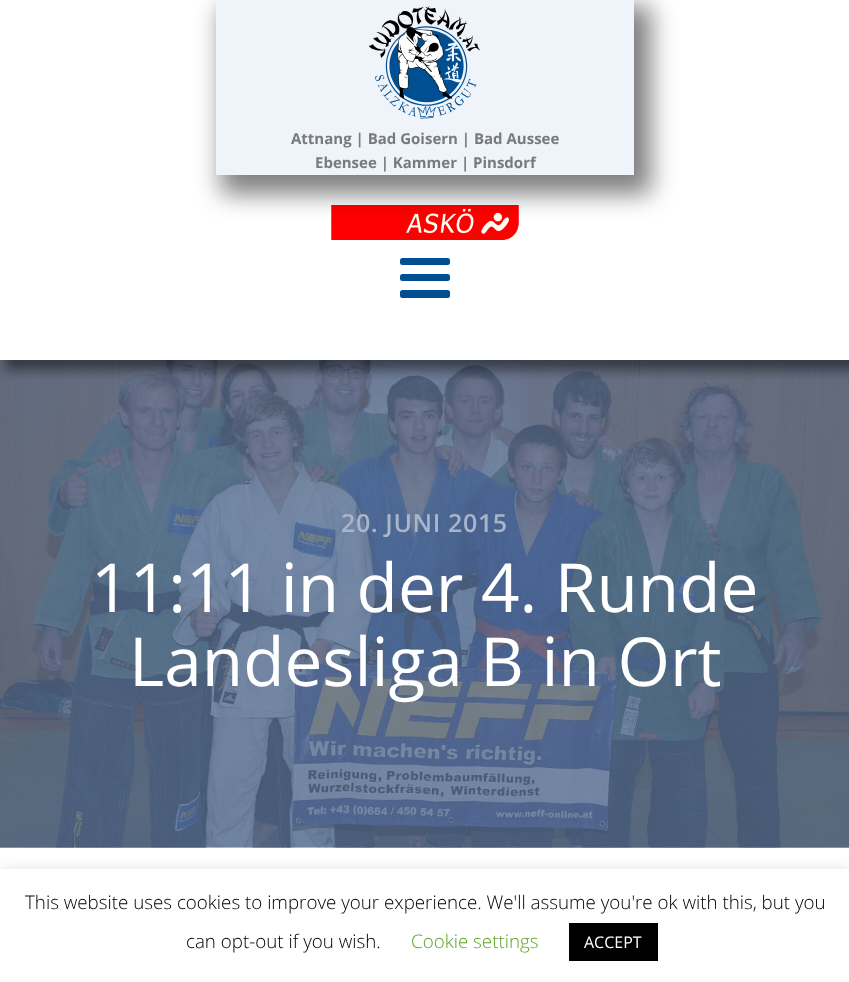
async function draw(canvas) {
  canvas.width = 849;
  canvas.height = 982;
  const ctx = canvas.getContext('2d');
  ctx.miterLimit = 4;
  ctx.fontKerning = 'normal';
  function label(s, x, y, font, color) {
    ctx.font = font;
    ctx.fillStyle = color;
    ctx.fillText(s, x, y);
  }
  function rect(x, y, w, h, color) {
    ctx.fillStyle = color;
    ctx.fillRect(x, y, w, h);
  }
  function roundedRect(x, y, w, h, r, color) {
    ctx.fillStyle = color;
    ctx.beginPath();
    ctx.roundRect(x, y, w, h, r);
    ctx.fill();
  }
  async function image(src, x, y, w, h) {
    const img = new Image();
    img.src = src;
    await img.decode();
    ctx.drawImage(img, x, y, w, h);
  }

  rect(0, 0, 849, 982, '#fff');
  await image('assets/img3.png', 0, 360, 849, 488);
  ctx.save();
  ctx.beginPath();
  ctx.rect(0, 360, 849, 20);
  ctx.clip();
  ctx.fillStyle = '#00000075';
  ctx.filter = 'blur(6px)';
  ctx.beginPath();
  ctx.rect(5, -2, 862, 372);
  ctx.fill();
  ctx.filter = 'none';
  ctx.restore();
  await image('assets/img2.png', 331, 205, 188, 35);
  ctx.fillStyle = '#00000080';
  ctx.filter = 'blur(12.5px)';
  ctx.beginPath();
  ctx.rect(221, 6, 430, 188);
  ctx.fill();
  ctx.filter = 'none';
  rect(216, 0, 418, 175, '#eff4fb');
  await image('assets/img1.png', 368, 6, 112, 113);
  label('Attnang | Bad Goisern | Bad Aussee', 291, 144, 'bold 15px Open Sans', '#787a7e');
  label('Ebensee | Kammer | Pinsdorf', 315, 168, 'bold 15px Open Sans', '#787a7e');
  roundedRect(400, 258, 50, 7, 2.5, '#004f92');
  roundedRect(400, 274, 50, 7, 2.5, '#004f92');
  roundedRect(400, 290, 50, 8, 2.5, '#004f92');
  ctx.letterSpacing = '0.6px';
  label('20. JUNI 2015', 341, 532, '600 25px Open Sans', '#a9b5c9');
  ctx.letterSpacing = '0px';
  label('11:11 in der 4. Runde', 91, 612, '67.5px Open Sans', '#fff');
  label('Landesliga B in Ort', 129, 686, '67.5px Open Sans', '#fff');
  ctx.fillStyle = '#acabab4d';
  ctx.filter = 'blur(6px)';
  ctx.beginPath();
  ctx.rect(0, 868, 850, 113);
  ctx.fill();
  ctx.filter = 'none';
  rect(0, 869, 849, 113, '#fff');
  label('This website uses cookies to improve your experience. We\'ll assume you\'re ok with this, but you', 25, 909, '300 18.75px Open Sans', '#000');
  label('can opt-out if you wish.', 186, 948, '300 18.75px Open Sans', '#000');
  label('Cookie settings', 411, 948, '300 18.75px Open Sans', '#62a329');
  rect(569, 923, 89, 38, '#000');
  label('ACCEPT', 584, 948, '16px Open Sans', '#fff');
}

draw(document.querySelector('canvas'));
